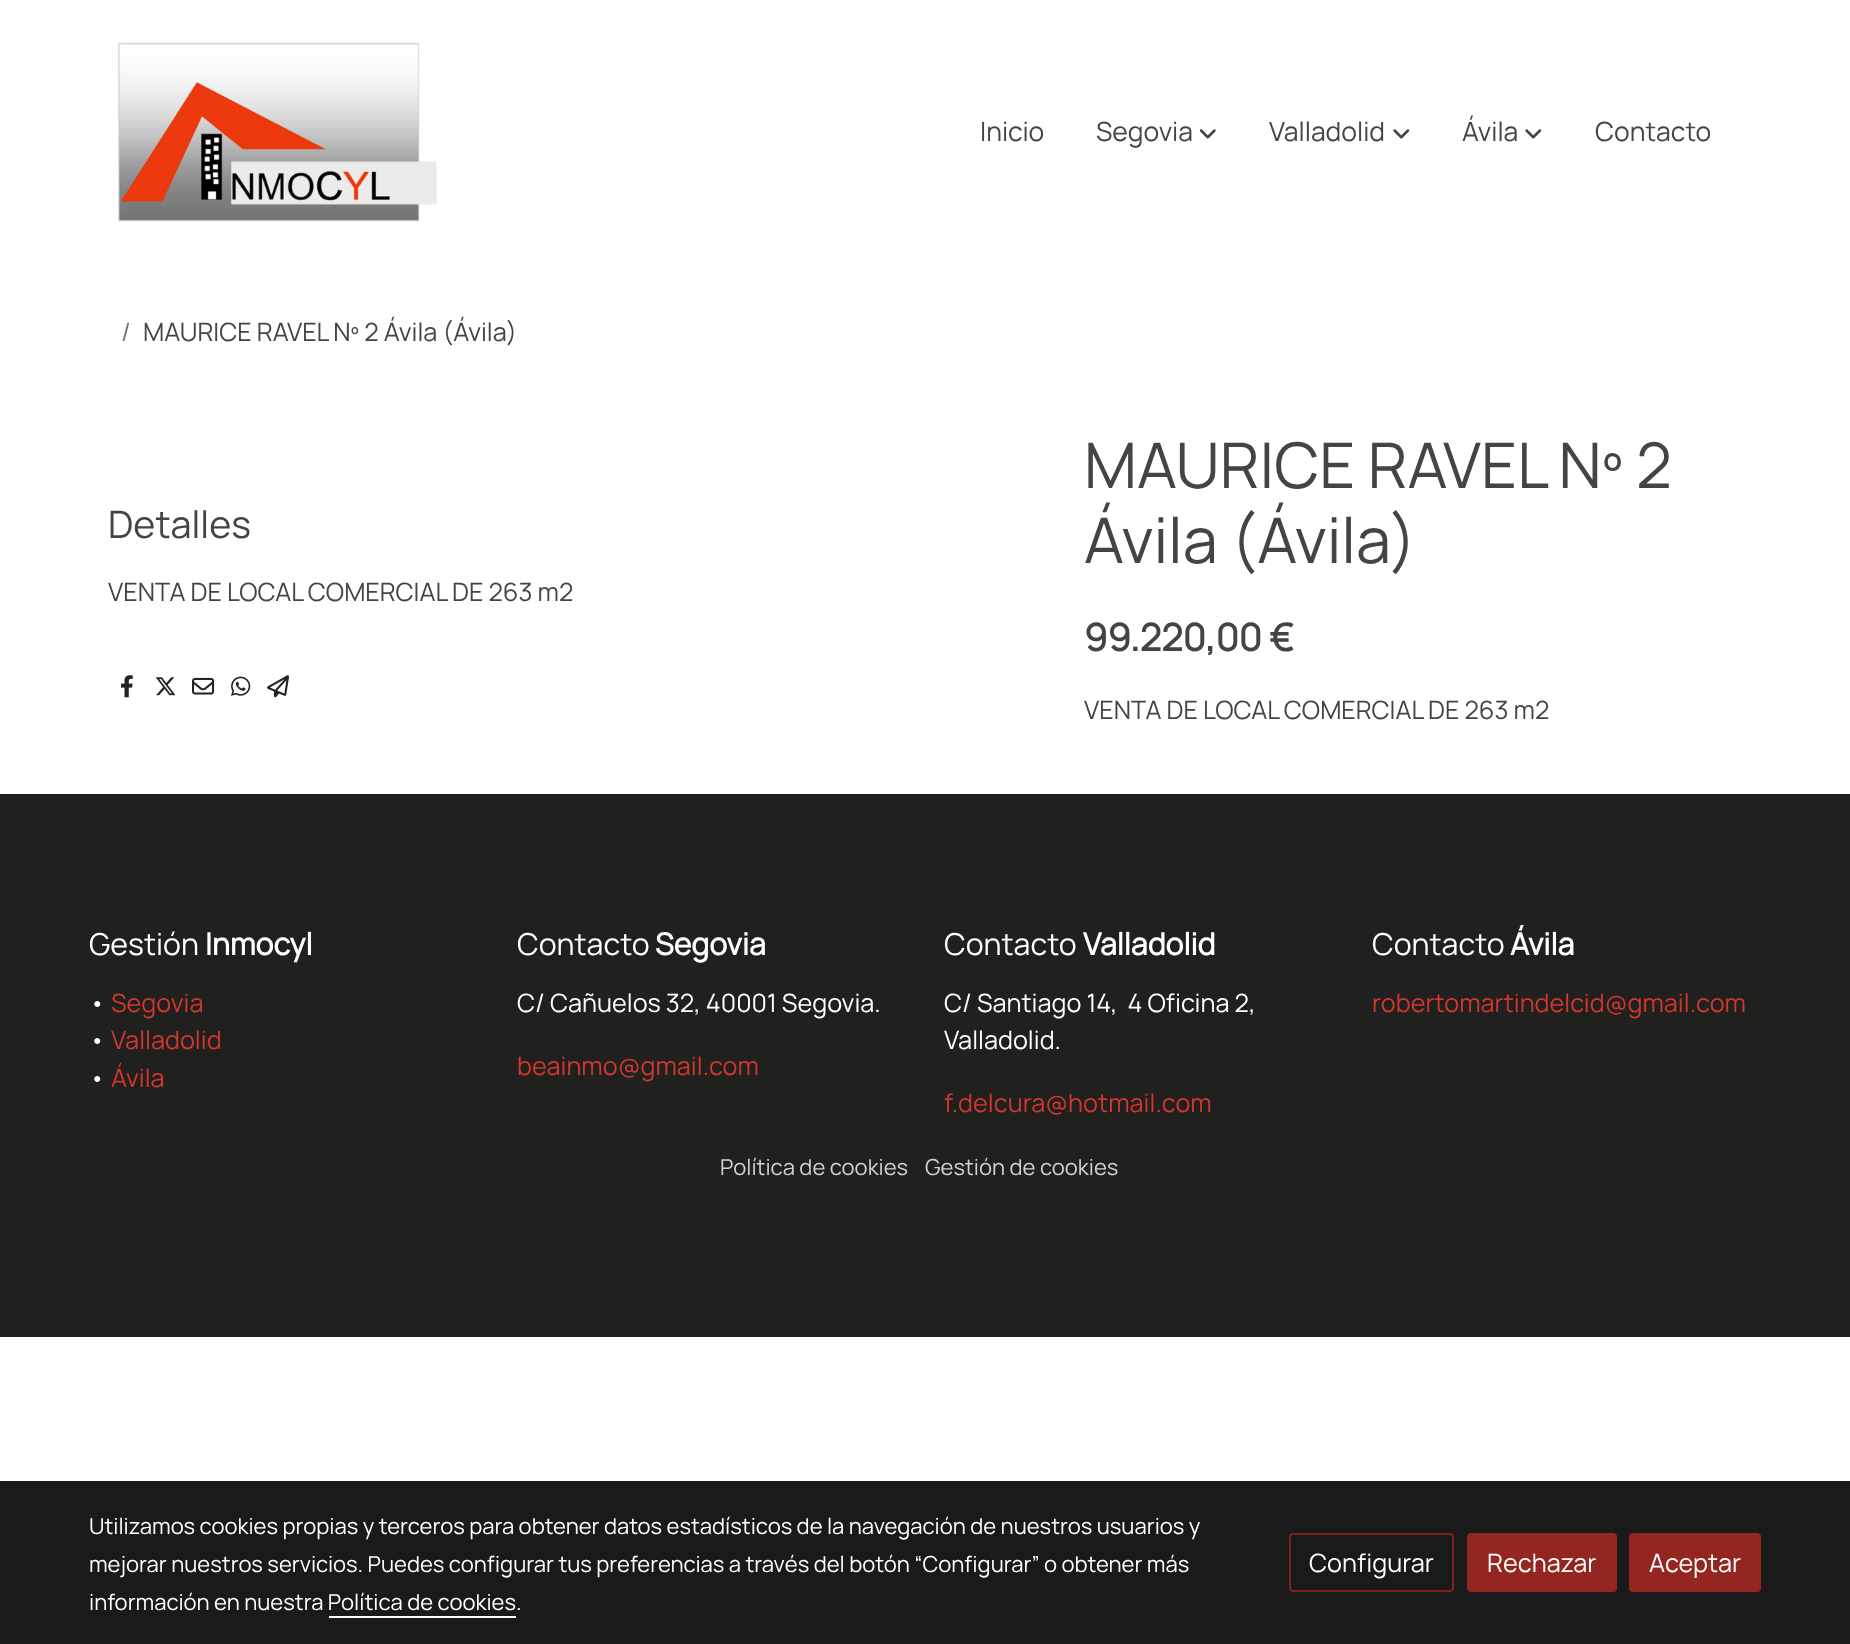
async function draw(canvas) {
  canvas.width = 1850;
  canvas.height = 1644;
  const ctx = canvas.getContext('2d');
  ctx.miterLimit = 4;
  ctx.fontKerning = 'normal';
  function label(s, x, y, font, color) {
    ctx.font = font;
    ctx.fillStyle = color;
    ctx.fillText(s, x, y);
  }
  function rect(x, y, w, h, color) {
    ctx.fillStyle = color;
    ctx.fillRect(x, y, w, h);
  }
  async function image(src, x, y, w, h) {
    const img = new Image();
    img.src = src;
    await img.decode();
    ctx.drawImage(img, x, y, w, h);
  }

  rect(0, 0, 1850, 1644, '#fff');
  await image('assets/img1.png', 118, 42, 319, 180);
  label('Inicio', 980, 141, '200 26.5px Manrope', '#444');
  label('Segovia', 1096, 141, '200 26.5px Manrope', '#444');
  await image('assets/img2.png', 1199, 129, 17, 10);
  label('Valladolid', 1269, 141, '200 26.5px Manrope', '#444');
  await image('assets/img3.png', 1393, 129, 17, 10);
  label('Ávila', 1462, 141, '200 26.5px Manrope', '#444');
  await image('assets/img3.png', 1525, 129, 17, 10);
  label('Contacto', 1595, 141, '200 26.5px Manrope', '#444');
  label('/', 121, 341, '200 25.25px Manrope', '#6c757d');
  label('MAURICE RAVEL Nº 2 Ávila (Ávila)', 143, 341, '200 25.25px Manrope', '#444');
  label('Detalles', 108, 538, '200 37.75px Manrope', '#444');
  label('VENTA DE LOCAL COMERCIAL DE 263 m2', 108, 601, '200 25.25px Manrope', '#444');
  await image('assets/img4.png', 121, 675, 12, 23);
  await image('assets/img5.png', 155, 677, 21, 19);
  await image('assets/img6.png', 192, 677, 23, 18);
  await image('assets/img7.png', 231, 676, 20, 20);
  await image('assets/img8.png', 267, 675, 22, 23);
  label('MAURICE RAVEL Nº 2', 1084, 488, '200 63px Manrope', '#444');
  label('Ávila (Ávila)', 1084, 563, '200 63px Manrope', '#444');
  label('99.220,00 €', 1084, 651, 'bold 37.75px Manrope', '#444');
  label('VENTA DE LOCAL COMERCIAL DE 263 m2', 1084, 719, '200 25.25px Manrope', '#444');
  rect(0, 794, 1850, 543, '#20201e');
  label('Gestión', 89, 955, '200 30.25px Manrope', '#fff');
  label('Inmocyl', 205, 955, 'bold 30.25px Manrope', '#fff');
  label('•', 89, 1012, '200 25.25px Manrope', '#fff');
  label('Segovia', 111, 1012, '200 25.25px Manrope', '#d1372f');
  label('•', 89, 1049, '200 25.25px Manrope', '#fff');
  label('Valladolid', 111, 1049, '200 25.25px Manrope', '#d1372f');
  label('•', 89, 1087, '200 25.25px Manrope', '#fff');
  label('Ávila', 111, 1087, '200 25.25px Manrope', '#d1372f');
  label('Contacto', 517, 955, '200 30.25px Manrope', '#fff');
  label('Segovia', 655, 955, 'bold 30.25px Manrope', '#fff');
  label('C/ Cañuelos 32, 40001 Segovia.', 517, 1012, '200 25.25px Manrope', '#fff');
  label('beainmo@gmail.com', 517, 1075, '200 25.25px Manrope', '#d1372f');
  label('Contacto', 944, 955, '200 30.25px Manrope', '#fff');
  label('Valladolid', 1083, 955, 'bold 30.25px Manrope', '#fff');
  label('C/ Santiago 14,  4 Oficina 2,', 944, 1012, '200 25.25px Manrope', '#fff');
  label('Valladolid.', 944, 1049, '200 25.25px Manrope', '#fff');
  label('f.delcura@hotmail.com', 944, 1112, '200 25.25px Manrope', '#d1372f');
  label('Contacto', 1372, 955, '200 30.25px Manrope', '#fff');
  label('Ávila', 1510, 955, 'bold 30.25px Manrope', '#fff');
  label('robertomartindelcid@gmail.com', 1372, 1012, '200 25.25px Manrope', '#d1372f');
  label('Política de cookies', 720, 1175, '200 22.05px Manrope', '#d2d2d2');
  label('Gestión de cookies', 925, 1175, '200 22.05px Manrope', '#d2d2d2');
  rect(0, 1481, 1850, 163, '#1a1a1a');
  label('Utilizamos cookies propias y terceros para obtener datos estadísticos de la navegación de nuestros usuarios y', 89, 1534, '200 22.05px Manrope', '#fff');
  label('mejorar nuestros servicios. Puedes configurar tus preferencias a través del botón “Configurar” o obtener más', 89, 1572, '200 22.05px Manrope', '#fff');
  label('información en nuestra Política de cookies.', 89, 1610, '200 22.05px Manrope', '#fff');
  rect(329, 1616, 187, 2, '#fff');
  ctx.beginPath();
  ctx.roundRect(1290, 1534, 163, 57, 3);
  ctx.strokeStyle = '#7e211c';
  ctx.lineWidth = 2;
  ctx.stroke();
  label('Configurar', 1309, 1572, '200 25.25px Manrope', '#fff');
  ctx.fillStyle = '#932621';
  ctx.beginPath();
  ctx.roundRect(1468, 1534, 148, 57, 3);
  ctx.fill();
  ctx.strokeStyle = '#932621';
  ctx.stroke();
  label('Rechazar', 1487, 1572, '200 25.25px Manrope', '#fff');
  ctx.fillStyle = '#932621';
  ctx.beginPath();
  ctx.roundRect(1630, 1534, 130, 57, 3);
  ctx.fill();
  ctx.stroke();
  label('Aceptar', 1649, 1572, '200 25.25px Manrope', '#fff');
}

draw(document.querySelector('canvas'));
